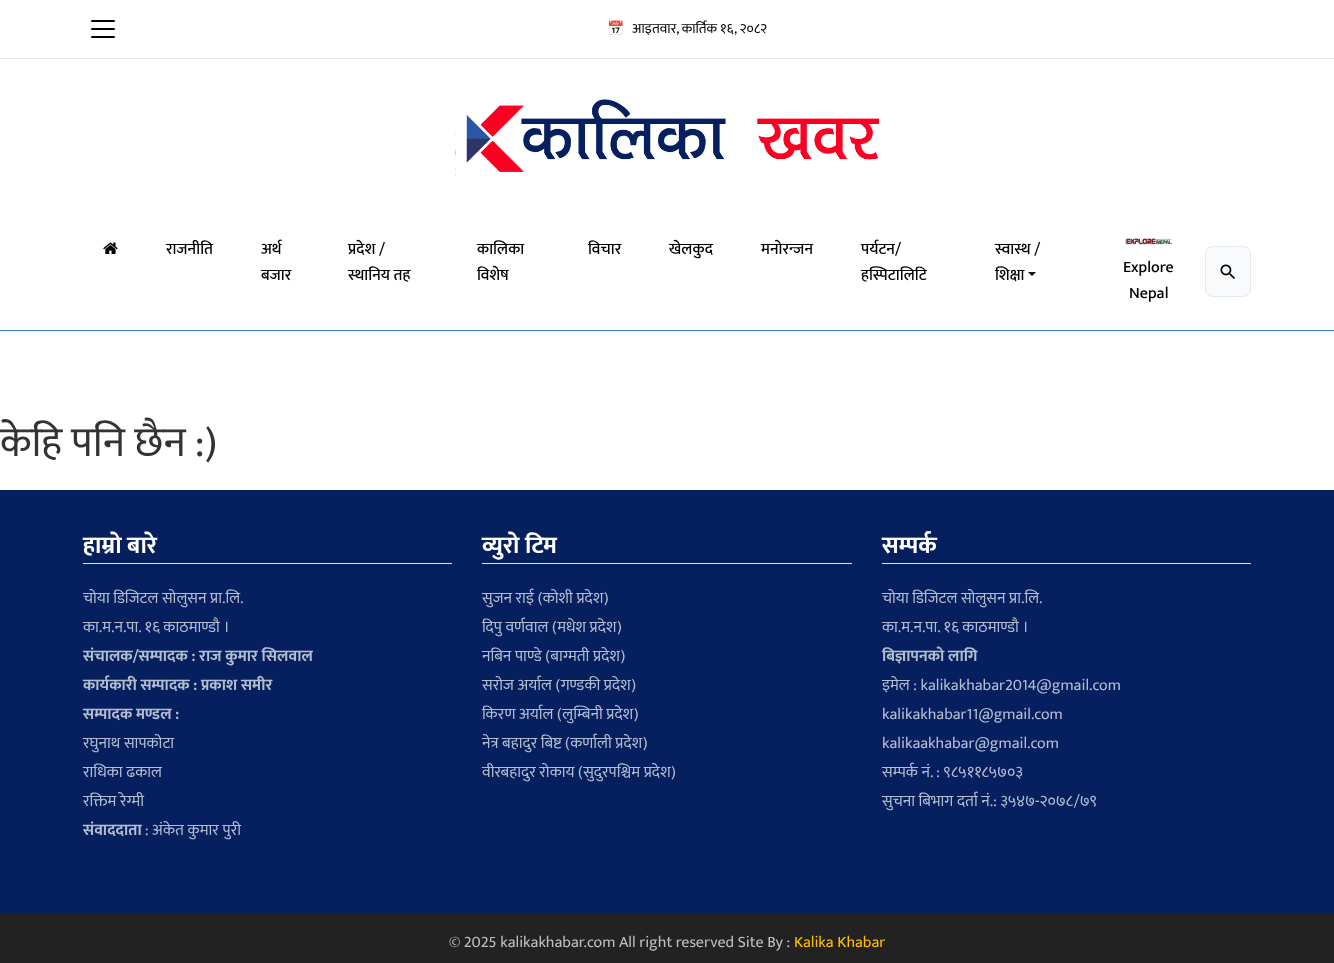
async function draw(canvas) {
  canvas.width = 1334;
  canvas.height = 963;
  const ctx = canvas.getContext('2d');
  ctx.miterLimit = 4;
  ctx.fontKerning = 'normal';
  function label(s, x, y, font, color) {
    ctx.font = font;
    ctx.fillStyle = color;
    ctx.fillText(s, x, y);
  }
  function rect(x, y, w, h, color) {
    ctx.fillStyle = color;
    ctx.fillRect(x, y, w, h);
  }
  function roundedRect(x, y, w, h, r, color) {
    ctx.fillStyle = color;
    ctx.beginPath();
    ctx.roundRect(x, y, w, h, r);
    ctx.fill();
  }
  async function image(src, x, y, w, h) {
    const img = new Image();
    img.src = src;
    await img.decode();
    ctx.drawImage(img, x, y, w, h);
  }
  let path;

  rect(0, 0, 1334, 963, '#fff');
  rect(0, 58, 1334, 1, '#e2e8f0');
  roundedRect(91, 20, 24, 2, 1, '#000');
  roundedRect(91, 28, 24, 2, 1, '#000');
  roundedRect(91, 36, 24, 2, 1, '#000');
  label('📅', 607, 33, '14px Noto Color Emoji', '#000');
  label('आइतवार, कार्तिक १६, २०८२', 632, 33, '14px Ek Mukta', '#000');
  await image('assets/img1.png', 455, 99, 424, 76);
  rect(0, 330, 1334, 1, '#3c7ed6');
  await image('assets/img2.png', 103, 242, 15, 12);
  label('राजनीति', 166, 254, '500 16px Ek Mukta', '#000');
  label('अर्थ', 261, 254, '500 16px Ek Mukta', '#000');
  label('बजार', 261, 280, '500 16px Ek Mukta', '#000');
  label('प्रदेश /', 348, 254, '500 16px Ek Mukta', '#000');
  label('स्थानिय तह', 348, 280, '500 16px Ek Mukta', '#000');
  label('कालिका', 477, 254, '500 16px Ek Mukta', '#000');
  label('विशेष', 477, 280, '500 16px Ek Mukta', '#000');
  label('विचार', 588, 254, '500 16px Ek Mukta', '#000');
  label('खेलकुद', 669, 254, '500 16px Ek Mukta', '#000');
  label('मनोरन्जन', 761, 254, '500 16px Ek Mukta', '#000');
  label('पर्यटन/', 861, 254, '500 16px Ek Mukta', '#000');
  label('हस्पिटालिटि', 861, 280, '500 16px Ek Mukta', '#000');
  label('स्वास्थ /', 995, 254, '500 16px Ek Mukta', '#000');
  label('शिक्षा', 995, 280, '500 16px Ek Mukta', '#000');
  path = new Path2D('M1028 272H1036L1032 276Z');
  ctx.fill(path);
  await image('assets/img3.png', 1125, 238, 47, 7);
  label('Explore', 1123, 272, '500 16px Ek Mukta', '#000');
  label('Nepal', 1129, 298, '500 16px Ek Mukta', '#000');
  ctx.fillStyle = '#f8fafc';
  ctx.beginPath();
  ctx.roundRect(1205.5, 246.5, 45, 50, 7.5);
  ctx.fill();
  ctx.strokeStyle = '#e2e8f0';
  ctx.stroke();
  await image('assets/img4.png', 1220, 264, 15, 15);
  label('केहि पनि छैन :)', 0, 456, '42px Ek Mukta', '#333');
  rect(0, 490, 1334, 424, '#051f5f');
  rect(83, 563, 369, 1, '#dee2e6');
  label('हाम्रो बारे', 83, 553, 'bold 24px Ek Mukta', '#fff');
  label('चोया डिजिटल सोलुसन प्रा.लि.', 83, 603, '16px Ek Mukta', '#b4bccf');
  label('का.म.न.पा. १६ काठमाण्डौ ।', 83, 632, '16px Ek Mukta', '#b4bccf');
  label('संचालक/सम्पादक : राज कुमार सिलवाल', 83, 661, 'bold 16px Ek Mukta', '#b4bccf');
  label('कार्यकारी सम्पादक : प्रकाश समीर', 83, 690, 'bold 16px Ek Mukta', '#b4bccf');
  label('सम्पादक मण्डल :', 83, 719, 'bold 16px Ek Mukta', '#b4bccf');
  label('रघुनाथ सापकोटा', 83, 748, '16px Ek Mukta', '#b4bccf');
  label('राधिका ढकाल', 83, 777, '16px Ek Mukta', '#b4bccf');
  label('रक्तिम रेग्मी', 83, 806, '16px Ek Mukta', '#b4bccf');
  label('संवाददाता', 83, 835, 'bold 16px Ek Mukta', '#b4bccf');
  label(': अंकेत कुमार पुरी', 145, 835, '16px Ek Mukta', '#b4bccf');
  rect(482, 563, 370, 1, '#dee2e6');
  label('व्युरो टिम', 482, 553, 'bold 24px Ek Mukta', '#fff');
  label('सुजन राई (कोशी प्रदेश)', 482, 603, '16px Ek Mukta', '#b4bccf');
  label('दिपु वर्णवाल (मधेश प्रदेश)', 482, 632, '16px Ek Mukta', '#b4bccf');
  label('नबिन पाण्डे (बाग्मती प्रदेश)', 482, 661, '16px Ek Mukta', '#b4bccf');
  label('सरोज अर्याल (गण्डकी प्रदेश)', 482, 690, '16px Ek Mukta', '#b4bccf');
  label('किरण अर्याल (लुम्बिनी प्रदेश)', 482, 719, '16px Ek Mukta', '#b4bccf');
  label('नेत्र बहादुर बिष्ट (कर्णाली प्रदेश)', 482, 748, '16px Ek Mukta', '#b4bccf');
  label('वीरबहादुर रोकाय (सुदुरपश्चिम प्रदेश)', 482, 777, '16px Ek Mukta', '#b4bccf');
  rect(882, 563, 369, 1, '#dee2e6');
  label('सम्पर्क', 882, 553, 'bold 24px Ek Mukta', '#fff');
  label('चोया डिजिटल सोलुसन प्रा.लि.', 882, 603, '16px Ek Mukta', '#b4bccf');
  label('का.म.न.पा. १६ काठमाण्डौ ।', 882, 632, '16px Ek Mukta', '#b4bccf');
  label('बिज्ञापनको लागि', 882, 661, 'bold 16px Ek Mukta', '#b4bccf');
  label('इमेल : kalikakhabar2014@gmail.com', 882, 690, '16px Ek Mukta', '#b4bccf');
  label('kalikakhabar11@gmail.com', 882, 719, '16px Ek Mukta', '#b4bccf');
  label('kalikaakhabar@gmail.com', 882, 748, '16px Ek Mukta', '#b4bccf');
  label('सम्पर्क नं. : ९८५११८५७०३', 882, 777, '16px Ek Mukta', '#b4bccf');
  label('सुचना बिभाग दर्ता नं.: ३५४७-२०७८/७९', 882, 806, '16px Ek Mukta', '#b4bccf');
  rect(0, 914, 1334, 49, '#222');
  label('© 2025 kalikakhabar.com All right reserved Site By :', 449, 947, '16px Ek Mukta', '#bdbdbd');
  label('Kalika Khabar', 794, 947, '16px Ek Mukta', '#ffbc00');
}

draw(document.querySelector('canvas'));
